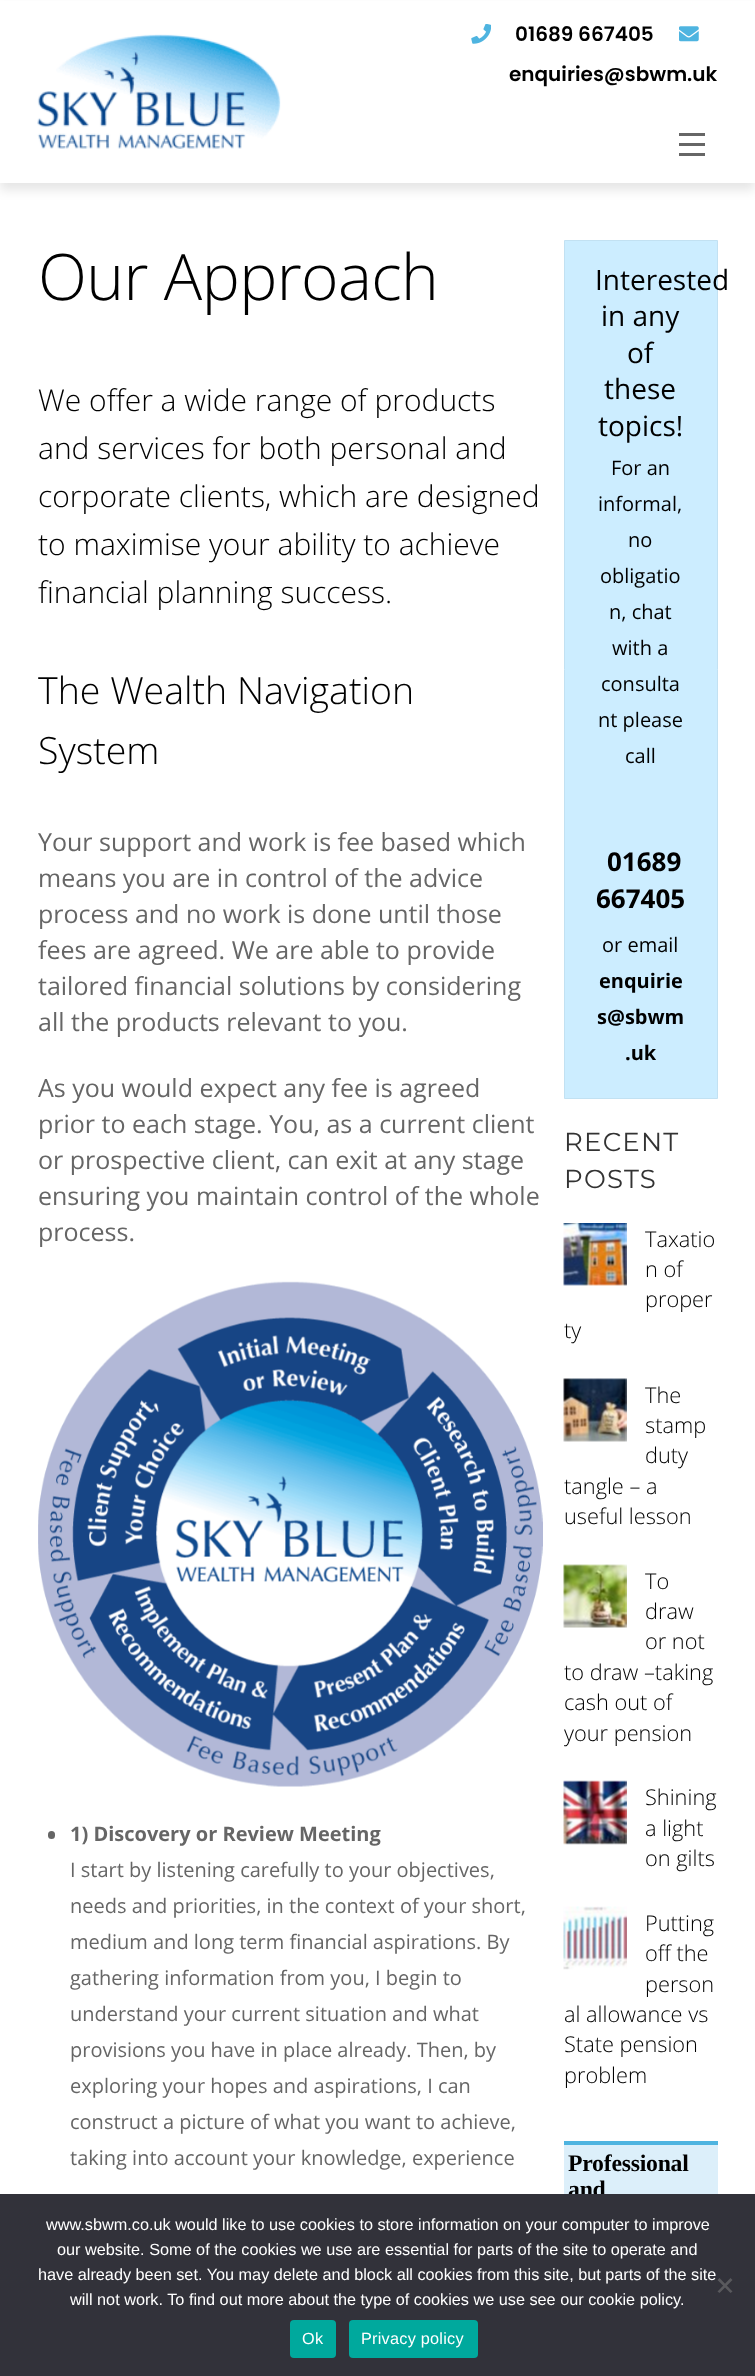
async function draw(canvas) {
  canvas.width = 755;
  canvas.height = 2376;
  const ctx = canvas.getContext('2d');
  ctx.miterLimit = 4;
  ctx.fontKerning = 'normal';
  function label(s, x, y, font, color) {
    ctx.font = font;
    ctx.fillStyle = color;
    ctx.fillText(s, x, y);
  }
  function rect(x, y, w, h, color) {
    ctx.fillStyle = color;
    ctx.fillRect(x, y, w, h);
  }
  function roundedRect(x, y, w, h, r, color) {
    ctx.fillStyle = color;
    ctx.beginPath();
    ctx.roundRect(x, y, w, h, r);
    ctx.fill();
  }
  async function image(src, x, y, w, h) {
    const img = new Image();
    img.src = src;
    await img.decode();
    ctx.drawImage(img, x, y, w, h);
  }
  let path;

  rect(0, 0, 755, 2376, '#fff');
  ctx.fillStyle = '#0000001a';
  ctx.filter = 'blur(5.5px)';
  ctx.beginPath();
  ctx.rect(0, 8, 755, 182);
  ctx.fill();
  ctx.filter = 'none';
  rect(0, 1, 755, 182, '#fff');
  await image('assets/img1.png', 37, 34, 244, 115);
  await image('assets/img2.png', 471, 24, 20, 20);
  label('01689 667405', 515, 41, '600 20px Poppins', '#000');
  await image('assets/img3.png', 679, 26, 20, 16);
  label('enquiries@sbwm.uk', 509, 81, '600 20px Poppins', '#000');
  rect(679, 153, 26, 3, '#666');
  rect(679, 133, 26, 3, '#666');
  rect(679, 143, 26, 3, '#666');
  ctx.letterSpacing = '-0.6px';
  label('Our Approach', 38, 300, '300 64px Open Sans', '#000');
  ctx.letterSpacing = '0px';
  label('We offer a wide range of products', 38, 411, '300 30px Open Sans', '#000');
  label('and services for both personal and', 38, 459, '300 30px Open Sans', '#000');
  label('corporate clients, which are designed', 38, 507, '300 30px Open Sans', '#000');
  label('to maximise your ability to achieve', 38, 555, '300 30px Open Sans', '#000');
  label('financial planning success.', 38, 603, '300 30px Open Sans', '#000');
  label('The Wealth Navigation', 38, 704, '300 37.5px Open Sans', '#000');
  label('System', 38, 764, '300 37.5px Open Sans', '#000');
  label('Your support and work is fee based which', 38, 851, '25px Open Sans', '#666');
  label('means you are in control of the advice', 38, 887, '25px Open Sans', '#666');
  label('process and no work is done until those', 38, 923, '25px Open Sans', '#666');
  label('fees are agreed. We are able to provide', 38, 959, '25px Open Sans', '#666');
  label('tailored financial solutions by considering', 38, 995, '25px Open Sans', '#666');
  label('all the products relevant to you.', 38, 1031, '25px Open Sans', '#666');
  label('As you would expect any fee is agreed', 38, 1097, '25px Open Sans', '#666');
  label('prior to each stage. You, as a current client', 38, 1133, '25px Open Sans', '#666');
  label('or prospective client, can exit at any stage', 38, 1169, '25px Open Sans', '#666');
  label('ensuring you maintain control of the whole', 38, 1205, '25px Open Sans', '#666');
  label('process.', 38, 1241, '25px Open Sans', '#666');
  await image('assets/img4.png', 38, 1281, 505, 506);
  roundedRect(48, 1831, 7, 8, 3.5, '#666');
  label('1) Discovery or Review Meeting', 70, 1841, 'bold 20px Open Sans', '#666');
  label('I start by listening carefully to your objectives,', 70, 1877, '20px Open Sans', '#666');
  label('needs and priorities, in the context of your short,', 70, 1913, '20px Open Sans', '#666');
  label('medium and long term financial aspirations. By', 70, 1949, '20px Open Sans', '#666');
  label('gathering information from you, I begin to', 70, 1985, '20px Open Sans', '#666');
  label('understand your current situation and what', 70, 2021, '20px Open Sans', '#666');
  label('provisions you have in place already. Then, by', 70, 2057, '20px Open Sans', '#666');
  label('exploring your hopes and aspirations, I can', 70, 2093, '20px Open Sans', '#666');
  label('construct a picture of what you want to achieve,', 70, 2129, '20px Open Sans', '#666');
  label('taking into account your knowledge, experience', 70, 2165, '20px Open Sans', '#666');
  ctx.fillStyle = '#ccedff';
  ctx.beginPath();
  ctx.rect(564.5, 240.5, 153, 858);
  ctx.fill();
  ctx.strokeStyle = '#c2e1f2';
  ctx.stroke();
  label('Interested', 595, 290, '28px Open Sans', '#000');
  label('in any', 601, 326, '28px Open Sans', '#000');
  label('of', 627, 363, '28px Open Sans', '#000');
  label('these', 604, 399, '28px Open Sans', '#000');
  label('topics!', 598, 436, '28px Open Sans', '#000');
  label('For an', 611, 475, '20px Open Sans', '#000');
  label('informal,', 598, 511, '20px Open Sans', '#000');
  label('no', 628, 547, '20px Open Sans', '#000');
  label('obligatio', 600, 583, '20px Open Sans', '#000');
  label('n, chat', 609, 619, '20px Open Sans', '#000');
  label('with a', 612, 655, '20px Open Sans', '#000');
  label('consulta', 601, 691, '20px Open Sans', '#000');
  label('nt please', 598, 727, '20px Open Sans', '#000');
  label('call', 625, 763, '20px Open Sans', '#000');
  label('01689', 607, 871, 'bold 26px Open Sans', '#000');
  label('667405', 596, 908, 'bold 26px Open Sans', '#000');
  label('or email', 602, 952, '20px Open Sans', '#000');
  label('enquirie', 599, 988, 'bold 20px Open Sans', '#000');
  label('s@sbwm', 597, 1024, 'bold 20px Open Sans', '#000');
  label('.uk', 625, 1060, 'bold 20px Open Sans', '#000');
  ctx.letterSpacing = '1.25px';
  label('RECENT', 564, 1151, '26px Montserrat', '#333');
  label('POSTS', 564, 1188, '26px Montserrat', '#333');
  await image('assets/img5.png', 563, 1223, 64, 63);
  ctx.letterSpacing = '0px';
  label('Taxatio', 645, 1247, '300 21.75px Open Sans', '#000');
  label('n of', 645, 1277, '300 21.75px Open Sans', '#000');
  label('proper', 645, 1307, '300 21.75px Open Sans', '#000');
  label('ty', 564, 1338, '300 21.75px Open Sans', '#000');
  await image('assets/img6.png', 563, 1378, 64, 64);
  label('The', 645, 1403, '300 21.75px Open Sans', '#000');
  label('stamp', 645, 1433, '300 21.75px Open Sans', '#000');
  label('duty', 645, 1463, '300 21.75px Open Sans', '#000');
  label('tangle – a', 564, 1494, '300 21.75px Open Sans', '#000');
  label('useful lesson', 564, 1524, '300 21.75px Open Sans', '#000');
  await image('assets/img7.png', 563, 1564, 64, 64);
  label('To', 645, 1589, '300 21.75px Open Sans', '#000');
  label('draw', 645, 1619, '300 21.75px Open Sans', '#000');
  label('or not', 645, 1649, '300 21.75px Open Sans', '#000');
  label('to draw –taking', 564, 1680, '300 21.75px Open Sans', '#000');
  label('cash out of', 564, 1710, '300 21.75px Open Sans', '#000');
  label('your pension', 564, 1741, '300 21.75px Open Sans', '#000');
  await image('assets/img8.png', 563, 1780, 64, 65);
  label('Shining', 645, 1805, '300 21.75px Open Sans', '#000');
  label('a light', 645, 1836, '300 21.75px Open Sans', '#000');
  label('on gilts', 645, 1866, '300 21.75px Open Sans', '#000');
  await image('assets/img9.png', 563, 1906, 64, 64);
  label('Putting', 645, 1931, '300 21.75px Open Sans', '#000');
  label('off the', 645, 1961, '300 21.75px Open Sans', '#000');
  label('person', 645, 1992, '300 21.75px Open Sans', '#000');
  label('al allowance vs', 564, 2022, '300 21.75px Open Sans', '#000');
  label('State pension', 564, 2052, '300 21.75px Open Sans', '#000');
  label('problem', 564, 2083, '300 21.75px Open Sans', '#000');
  rect(564, 2145, 154, 49, '#dceffa');
  rect(564, 2141, 154, 4, '#4eb4e0');
  ctx.letterSpacing = '-0.25px';
  label('Professional', 568, 2171, 'bold 23.75px Liberation Serif', '#000');
  label('and', 568, 2197, 'bold 23.75px Liberation Serif', '#000');
  rect(0, 2194, 755, 182, '#32323a');
  ctx.letterSpacing = '0px';
  label('www.sbwm.co.uk would like to use cookies to store information on your computer to improve', 46, 2230, '16.25px Liberation Sans', '#fff');
  label('our website. Some of the cookies we use are essential for parts of the site to operate and', 57, 2255, '16.25px Liberation Sans', '#fff');
  label('have already been set. You may delete and block all cookies from this site, but parts of the site', 38, 2280, '16.25px Liberation Sans', '#fff');
  label('will not work. To find out more about the type of cookies we use see our cookie policy.', 70, 2305, '16.25px Liberation Sans', '#fff');
  ctx.fillStyle = '#59595d';
  path = new Path2D('M730.5 2278L732.5 2280L719.5 2293L717.5 2291.5Z');
  ctx.fill(path);
  path = new Path2D('M717.5 2280L719.5 2278L732.5 2291.5L730.5 2293Z');
  ctx.fill(path);
  roundedRect(290, 2320, 46, 38, 4, '#00a99d');
  ctx.letterSpacing = '0.25px';
  label('Ok', 302, 2344, '16.25px Liberation Sans', '#fff');
  roundedRect(349, 2320, 129, 38, 4, '#00a99d');
  label('Privacy policy', 361, 2344, '16.25px Liberation Sans', '#fff');
}

draw(document.querySelector('canvas'));
